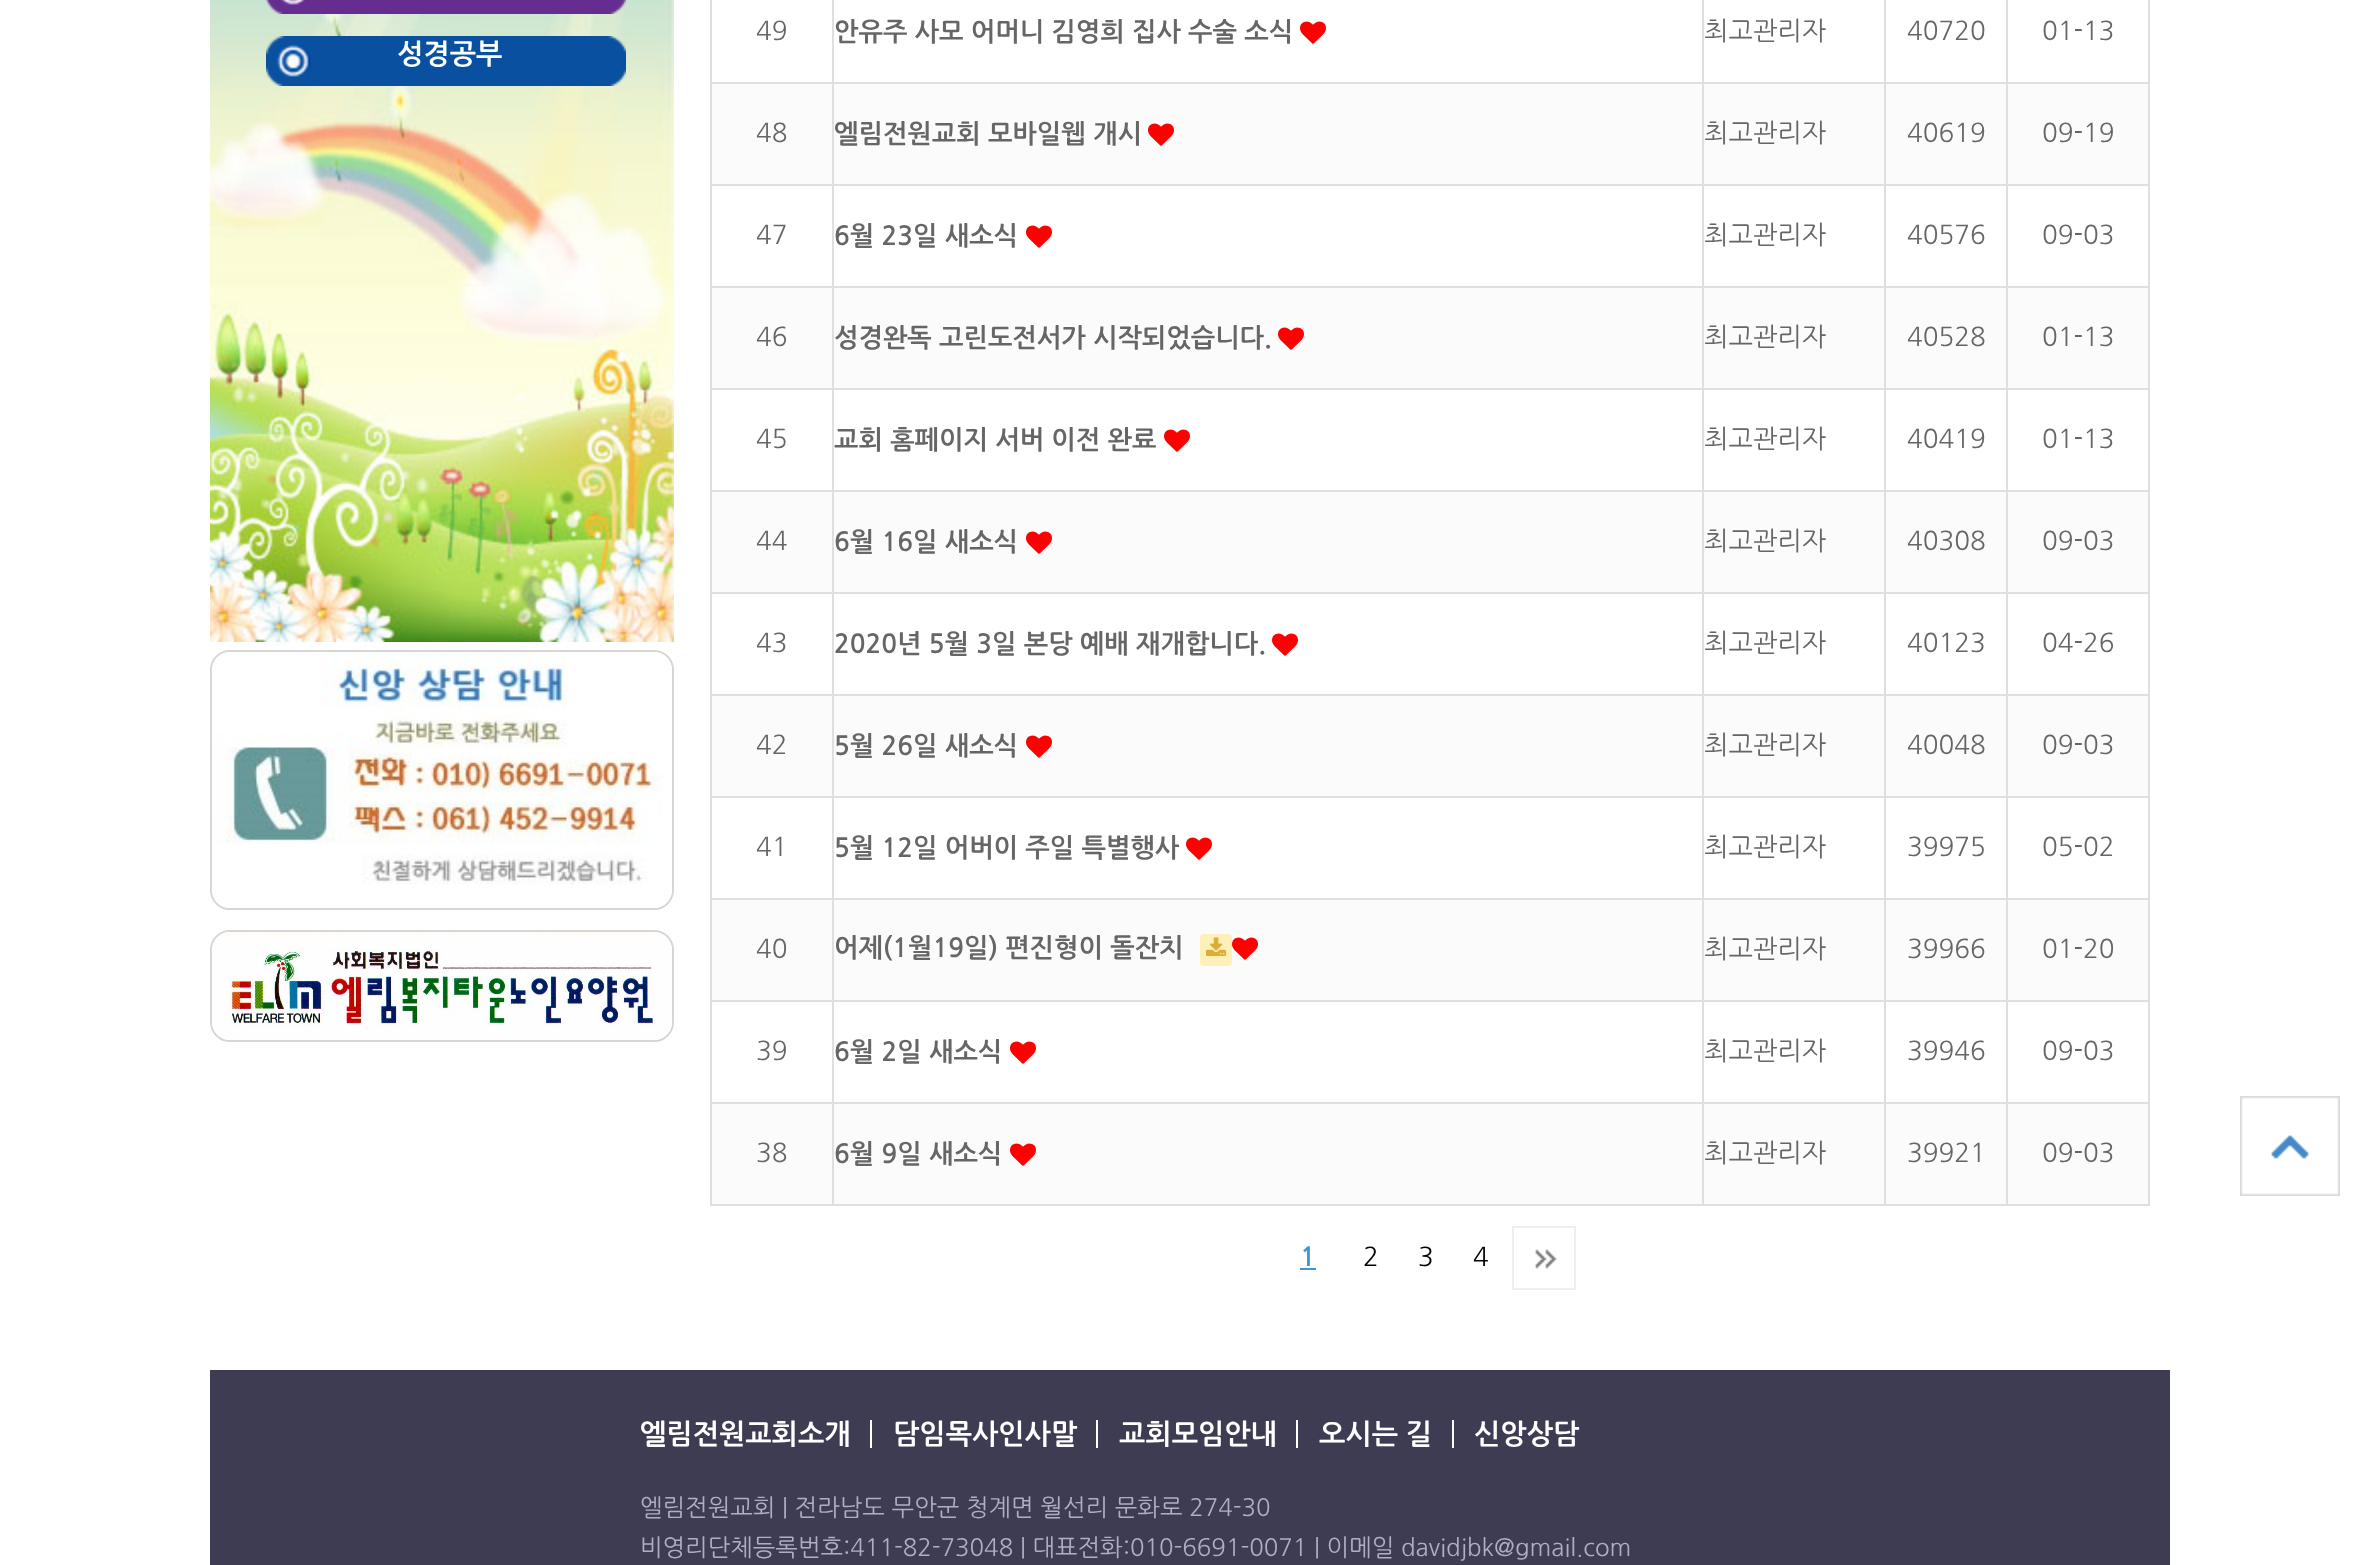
async function draw(canvas) {
  canvas.width = 2379;
  canvas.height = 1565;
  const ctx = canvas.getContext('2d');
  ctx.miterLimit = 4;
  ctx.fontKerning = 'normal';
  function label(s, x, y, font, color) {
    ctx.font = font;
    ctx.fillStyle = color;
    ctx.fillText(s, x, y);
  }
  function rect(x, y, w, h, color) {
    ctx.fillStyle = color;
    ctx.fillRect(x, y, w, h);
  }
  function roundedRect(x, y, w, h, r, color) {
    ctx.fillStyle = color;
    ctx.beginPath();
    ctx.roundRect(x, y, w, h, r);
    ctx.fill();
  }
  async function image(src, x, y, w, h) {
    const img = new Image();
    img.src = src;
    await img.decode();
    ctx.drawImage(img, x, y, w, h);
  }

  rect(0, 0, 2379, 1565, '#fff');
  await image('assets/img1.png', 210, 0, 464, 642);
  await image('assets/img2.png', 266, 0, 360, 14);
  await image('assets/img3.png', 266, 36, 360, 50);
  label('성경공부', 397, 64, 'bold 28px NanumGothic', '#fff');
  ctx.beginPath();
  ctx.roundRect(211, 651, 462, 258, 19);
  ctx.strokeStyle = '#d6d6d6';
  ctx.lineWidth = 2;
  ctx.stroke();
  await image('assets/img4.png', 212, 652, 460, 256);
  ctx.beginPath();
  ctx.roundRect(211, 931, 462, 110, 19);
  ctx.stroke();
  await image('assets/img5.png', 212, 932, 460, 108);
  label('49', 756, 40, '26px NanumGothic', '#666');
  rect(2006, 82, 144, 2, '#dfdfdf');
  rect(2006, 184, 144, 2, '#dfdfdf');
  rect(2006, 286, 144, 2, '#dfdfdf');
  rect(2006, 388, 144, 2, '#dfdfdf');
  rect(2006, 490, 144, 2, '#dfdfdf');
  rect(2006, 592, 144, 2, '#dfdfdf');
  rect(2006, 694, 144, 2, '#dfdfdf');
  rect(2006, 796, 144, 2, '#dfdfdf');
  rect(2006, 898, 144, 2, '#dfdfdf');
  rect(2006, 1000, 144, 2, '#dfdfdf');
  rect(2006, 1102, 144, 2, '#dfdfdf');
  rect(2148, 1102, 2, 104, '#dfdfdf');
  rect(2006, 1204, 144, 2, '#dfdfdf');
  rect(2006, 1102, 2, 104, '#dfdfdf');
  rect(1884, 1102, 124, 2, '#dfdfdf');
  rect(2006, 1000, 2, 104, '#dfdfdf');
  rect(1884, 1000, 124, 2, '#dfdfdf');
  rect(2006, 898, 2, 104, '#dfdfdf');
  rect(1884, 898, 124, 2, '#dfdfdf');
  rect(2006, 796, 2, 104, '#dfdfdf');
  rect(1884, 796, 124, 2, '#dfdfdf');
  rect(2006, 694, 2, 104, '#dfdfdf');
  rect(1884, 694, 124, 2, '#dfdfdf');
  rect(2006, 592, 2, 104, '#dfdfdf');
  rect(1884, 592, 124, 2, '#dfdfdf');
  rect(2006, 490, 2, 104, '#dfdfdf');
  rect(1884, 490, 124, 2, '#dfdfdf');
  rect(2006, 388, 2, 104, '#dfdfdf');
  rect(1884, 388, 124, 2, '#dfdfdf');
  rect(2006, 286, 2, 104, '#dfdfdf');
  rect(1884, 286, 124, 2, '#dfdfdf');
  rect(2006, 184, 2, 104, '#dfdfdf');
  rect(1884, 184, 124, 2, '#dfdfdf');
  rect(2006, 82, 2, 104, '#dfdfdf');
  rect(1884, 82, 124, 2, '#dfdfdf');
  rect(1884, 1204, 124, 2, '#dfdfdf');
  rect(1884, 1102, 2, 104, '#dfdfdf');
  rect(1702, 1102, 184, 2, '#dfdfdf');
  rect(1884, 1000, 2, 104, '#dfdfdf');
  rect(1702, 1000, 184, 2, '#dfdfdf');
  rect(1884, 898, 2, 104, '#dfdfdf');
  rect(1702, 898, 184, 2, '#dfdfdf');
  rect(1884, 796, 2, 104, '#dfdfdf');
  rect(1702, 796, 184, 2, '#dfdfdf');
  rect(1884, 694, 2, 104, '#dfdfdf');
  rect(1702, 694, 184, 2, '#dfdfdf');
  rect(1884, 592, 2, 104, '#dfdfdf');
  rect(1702, 592, 184, 2, '#dfdfdf');
  rect(1884, 490, 2, 104, '#dfdfdf');
  rect(1702, 490, 184, 2, '#dfdfdf');
  rect(1884, 388, 2, 104, '#dfdfdf');
  rect(1702, 388, 184, 2, '#dfdfdf');
  rect(1884, 286, 2, 104, '#dfdfdf');
  rect(1702, 286, 184, 2, '#dfdfdf');
  rect(1884, 184, 2, 104, '#dfdfdf');
  rect(1702, 184, 184, 2, '#dfdfdf');
  rect(1884, 82, 2, 104, '#dfdfdf');
  rect(1702, 82, 184, 2, '#dfdfdf');
  rect(1702, 1204, 184, 2, '#dfdfdf');
  rect(1702, 1102, 2, 104, '#dfdfdf');
  rect(832, 1102, 872, 2, '#dfdfdf');
  rect(1702, 1000, 2, 104, '#dfdfdf');
  rect(832, 1000, 872, 2, '#dfdfdf');
  rect(1702, 898, 2, 104, '#dfdfdf');
  rect(832, 898, 872, 2, '#dfdfdf');
  rect(1702, 796, 2, 104, '#dfdfdf');
  rect(832, 796, 872, 2, '#dfdfdf');
  rect(1702, 694, 2, 104, '#dfdfdf');
  rect(832, 694, 872, 2, '#dfdfdf');
  rect(1702, 592, 2, 104, '#dfdfdf');
  rect(832, 592, 872, 2, '#dfdfdf');
  rect(1702, 490, 2, 104, '#dfdfdf');
  rect(832, 490, 872, 2, '#dfdfdf');
  rect(1702, 388, 2, 104, '#dfdfdf');
  rect(832, 388, 872, 2, '#dfdfdf');
  rect(1702, 286, 2, 104, '#dfdfdf');
  rect(832, 286, 872, 2, '#dfdfdf');
  rect(1702, 184, 2, 104, '#dfdfdf');
  rect(832, 184, 872, 2, '#dfdfdf');
  rect(1702, 82, 2, 104, '#dfdfdf');
  rect(832, 82, 872, 2, '#dfdfdf');
  rect(832, 1204, 872, 2, '#dfdfdf');
  rect(832, 1102, 2, 104, '#dfdfdf');
  rect(710, 1102, 124, 2, '#dfdfdf');
  rect(832, 1000, 2, 104, '#dfdfdf');
  rect(710, 1000, 124, 2, '#dfdfdf');
  rect(832, 898, 2, 104, '#dfdfdf');
  rect(710, 898, 124, 2, '#dfdfdf');
  rect(832, 796, 2, 104, '#dfdfdf');
  rect(710, 796, 124, 2, '#dfdfdf');
  rect(832, 694, 2, 104, '#dfdfdf');
  rect(710, 694, 124, 2, '#dfdfdf');
  rect(832, 592, 2, 104, '#dfdfdf');
  rect(710, 592, 124, 2, '#dfdfdf');
  rect(832, 490, 2, 104, '#dfdfdf');
  rect(710, 490, 124, 2, '#dfdfdf');
  rect(832, 388, 2, 104, '#dfdfdf');
  rect(710, 388, 124, 2, '#dfdfdf');
  rect(832, 286, 2, 104, '#dfdfdf');
  rect(710, 286, 124, 2, '#dfdfdf');
  rect(832, 184, 2, 104, '#dfdfdf');
  rect(710, 184, 124, 2, '#dfdfdf');
  rect(832, 82, 2, 104, '#dfdfdf');
  rect(710, 82, 124, 2, '#dfdfdf');
  rect(832, 0, 2, 84, '#dfdfdf');
  label('안유주 사모 어머니 김영희 집사 수술 소식', 834, 41, 'bold 26px NanumGothic', '#666');
  await image('assets/img6.png', 1300, 21, 26, 23);
  rect(1702, 0, 2, 84, '#dfdfdf');
  label('최고관리자', 1704, 40, '26px NanumGothic', '#666');
  rect(1884, 0, 2, 84, '#dfdfdf');
  label('40720', 1907, 40, '26px NanumGothic', '#666');
  rect(2006, 0, 2, 84, '#dfdfdf');
  label('01-13', 2042, 40, '26px NanumGothic', '#666');
  rect(712, 84, 120, 100, '#fbfbfb');
  rect(710, 1204, 124, 2, '#dfdfdf');
  rect(710, 1102, 2, 104, '#dfdfdf');
  rect(710, 1000, 2, 104, '#dfdfdf');
  rect(710, 898, 2, 104, '#dfdfdf');
  rect(710, 796, 2, 104, '#dfdfdf');
  rect(710, 694, 2, 104, '#dfdfdf');
  rect(710, 592, 2, 104, '#dfdfdf');
  rect(710, 490, 2, 104, '#dfdfdf');
  rect(710, 388, 2, 104, '#dfdfdf');
  rect(710, 286, 2, 104, '#dfdfdf');
  rect(710, 184, 2, 104, '#dfdfdf');
  rect(710, 0, 2, 186, '#dfdfdf');
  label('48', 756, 142, '26px NanumGothic', '#666');
  rect(834, 84, 868, 100, '#fbfbfb');
  label('엘림전원교회 모바일웹 개시', 834, 143, 'bold 26px NanumGothic', '#666');
  await image('assets/img7.png', 1148, 123, 26, 23);
  rect(1704, 84, 180, 100, '#fbfbfb');
  label('최고관리자', 1704, 142, '26px NanumGothic', '#666');
  rect(1886, 84, 120, 100, '#fbfbfb');
  label('40619', 1907, 142, '26px NanumGothic', '#666');
  rect(2008, 84, 140, 100, '#fbfbfb');
  rect(2148, 1000, 2, 104, '#dfdfdf');
  rect(2148, 898, 2, 104, '#dfdfdf');
  rect(2148, 796, 2, 104, '#dfdfdf');
  rect(2148, 694, 2, 104, '#dfdfdf');
  rect(2148, 592, 2, 104, '#dfdfdf');
  rect(2148, 490, 2, 104, '#dfdfdf');
  rect(2148, 388, 2, 104, '#dfdfdf');
  rect(2148, 286, 2, 104, '#dfdfdf');
  rect(2148, 184, 2, 104, '#dfdfdf');
  rect(2148, 0, 2, 186, '#dfdfdf');
  label('09-19', 2042, 142, '26px NanumGothic', '#666');
  label('47', 756, 244, '26px NanumGothic', '#666');
  label('6월 23일 새소식', 834, 245, 'bold 26px NanumGothic', '#666');
  await image('assets/img6.png', 1026, 225, 26, 23);
  label('최고관리자', 1704, 244, '26px NanumGothic', '#666');
  label('40576', 1907, 244, '26px NanumGothic', '#666');
  label('09-03', 2042, 244, '26px NanumGothic', '#666');
  rect(712, 288, 120, 100, '#fbfbfb');
  label('46', 756, 346, '26px NanumGothic', '#666');
  rect(834, 288, 868, 100, '#fbfbfb');
  label('성경완독 고린도전서가 시작되었습니다.', 834, 347, 'bold 26px NanumGothic', '#666');
  await image('assets/img7.png', 1278, 327, 26, 23);
  rect(1704, 288, 180, 100, '#fbfbfb');
  label('최고관리자', 1704, 346, '26px NanumGothic', '#666');
  rect(1886, 288, 120, 100, '#fbfbfb');
  label('40528', 1907, 346, '26px NanumGothic', '#666');
  rect(2008, 288, 140, 100, '#fbfbfb');
  label('01-13', 2042, 346, '26px NanumGothic', '#666');
  label('45', 756, 448, '26px NanumGothic', '#666');
  label('교회 홈페이지 서버 이전 완료', 834, 449, 'bold 26px NanumGothic', '#666');
  await image('assets/img6.png', 1164, 429, 26, 23);
  label('최고관리자', 1704, 448, '26px NanumGothic', '#666');
  label('40419', 1907, 448, '26px NanumGothic', '#666');
  label('01-13', 2042, 448, '26px NanumGothic', '#666');
  rect(712, 492, 120, 100, '#fbfbfb');
  label('44', 756, 550, '26px NanumGothic', '#666');
  rect(834, 492, 868, 100, '#fbfbfb');
  label('6월 16일 새소식', 834, 551, 'bold 26px NanumGothic', '#666');
  await image('assets/img7.png', 1026, 531, 26, 23);
  rect(1704, 492, 180, 100, '#fbfbfb');
  label('최고관리자', 1704, 550, '26px NanumGothic', '#666');
  rect(1886, 492, 120, 100, '#fbfbfb');
  label('40308', 1907, 550, '26px NanumGothic', '#666');
  rect(2008, 492, 140, 100, '#fbfbfb');
  label('09-03', 2042, 550, '26px NanumGothic', '#666');
  label('43', 756, 652, '26px NanumGothic', '#666');
  label('2020년 5월 3일 본당 예배 재개합니다.', 834, 653, 'bold 26px NanumGothic', '#666');
  await image('assets/img6.png', 1272, 633, 26, 23);
  label('최고관리자', 1704, 652, '26px NanumGothic', '#666');
  label('40123', 1907, 652, '26px NanumGothic', '#666');
  label('04-26', 2042, 652, '26px NanumGothic', '#666');
  rect(712, 696, 120, 100, '#fbfbfb');
  label('42', 756, 754, '26px NanumGothic', '#666');
  rect(834, 696, 868, 100, '#fbfbfb');
  label('5월 26일 새소식', 834, 755, 'bold 26px NanumGothic', '#666');
  await image('assets/img7.png', 1026, 735, 26, 23);
  rect(1704, 696, 180, 100, '#fbfbfb');
  label('최고관리자', 1704, 754, '26px NanumGothic', '#666');
  rect(1886, 696, 120, 100, '#fbfbfb');
  label('40048', 1907, 754, '26px NanumGothic', '#666');
  rect(2008, 696, 140, 100, '#fbfbfb');
  label('09-03', 2042, 754, '26px NanumGothic', '#666');
  label('41', 756, 856, '26px NanumGothic', '#666');
  label('5월 12일 어버이 주일 특별행사', 834, 857, 'bold 26px NanumGothic', '#666');
  await image('assets/img6.png', 1186, 837, 26, 23);
  label('최고관리자', 1704, 856, '26px NanumGothic', '#666');
  label('39975', 1907, 856, '26px NanumGothic', '#666');
  label('05-02', 2042, 856, '26px NanumGothic', '#666');
  rect(712, 900, 120, 100, '#fbfbfb');
  label('40', 756, 958, '26px NanumGothic', '#666');
  rect(834, 900, 868, 100, '#fbfbfb');
  label('어제(1월19일) 편진형이 돌잔치', 834, 957, 'bold 26px NanumGothic', '#666');
  roundedRect(1200, 934, 32, 32, 4, '#ffefb9');
  await image('assets/img8.png', 1206, 937, 21, 19);
  await image('assets/img7.png', 1232, 937, 26, 23);
  rect(1704, 900, 180, 100, '#fbfbfb');
  label('최고관리자', 1704, 958, '26px NanumGothic', '#666');
  rect(1886, 900, 120, 100, '#fbfbfb');
  label('39966', 1907, 958, '26px NanumGothic', '#666');
  rect(2008, 900, 140, 100, '#fbfbfb');
  label('01-20', 2042, 958, '26px NanumGothic', '#666');
  label('39', 756, 1060, '26px NanumGothic', '#666');
  label('6월 2일 새소식', 834, 1061, 'bold 26px NanumGothic', '#666');
  await image('assets/img6.png', 1010, 1041, 26, 23);
  label('최고관리자', 1704, 1060, '26px NanumGothic', '#666');
  label('39946', 1907, 1060, '26px NanumGothic', '#666');
  label('09-03', 2042, 1060, '26px NanumGothic', '#666');
  rect(712, 1104, 120, 100, '#fbfbfb');
  label('38', 756, 1162, '26px NanumGothic', '#666');
  rect(834, 1104, 868, 100, '#fbfbfb');
  label('6월 9일 새소식', 834, 1163, 'bold 26px NanumGothic', '#666');
  await image('assets/img7.png', 1010, 1143, 26, 23);
  rect(1704, 1104, 180, 100, '#fbfbfb');
  label('최고관리자', 1704, 1162, '26px NanumGothic', '#666');
  rect(1886, 1104, 120, 100, '#fbfbfb');
  label('39921', 1907, 1162, '26px NanumGothic', '#666');
  rect(2008, 1104, 140, 100, '#fbfbfb');
  label('09-03', 2042, 1162, '26px NanumGothic', '#666');
  label('1', 1300, 1266, 'bold 26px NanumGothic', '#3c95d5');
  rect(1300, 1268, 16, 2, '#3c95d5');
  label('2', 1363, 1266, '26px NanumGothic', '#000');
  label('3', 1418, 1266, '26px NanumGothic', '#000');
  label('4', 1473, 1266, '26px NanumGothic', '#000');
  await image('assets/img9.png', 1535, 1249, 22, 20);
  ctx.strokeStyle = '#eee';
  ctx.strokeRect(1513, 1227, 62, 62);
  await image('assets/img10.png', 2240, 1096, 100, 100);
  rect(210, 1370, 1960, 195, '#3e3c52');
  label('엘림전원교회소개', 640, 1444, 'bold 28px NanumGothic', '#fff');
  rect(870, 1420, 2, 28, '#fff');
  label('담임목사인사말', 893, 1444, 'bold 28px NanumGothic', '#fff');
  rect(1096, 1420, 2, 28, '#fff');
  label('교회모임안내', 1119, 1444, 'bold 28px NanumGothic', '#fff');
  rect(1296, 1420, 2, 28, '#fff');
  label('오시는 길', 1319, 1444, 'bold 28px NanumGothic', '#fff');
  rect(1452, 1420, 2, 28, '#fff');
  label('신앙상담', 1474, 1444, 'bold 28px NanumGothic', '#fff');
  label('엘림전원교회 | 전라남도 무안군 청계면 월선리 문화로 274-30', 640, 1516, '24px NanumGothic', '#b0aec5');
  label('비영리단체등록번호:411-82-73048 | 대표전화:010-6691-0071 | 이메일 davidjbk@gmail.com', 640, 1556, '24px NanumGothic', '#b0aec5');
}

draw(document.querySelector('canvas'));
